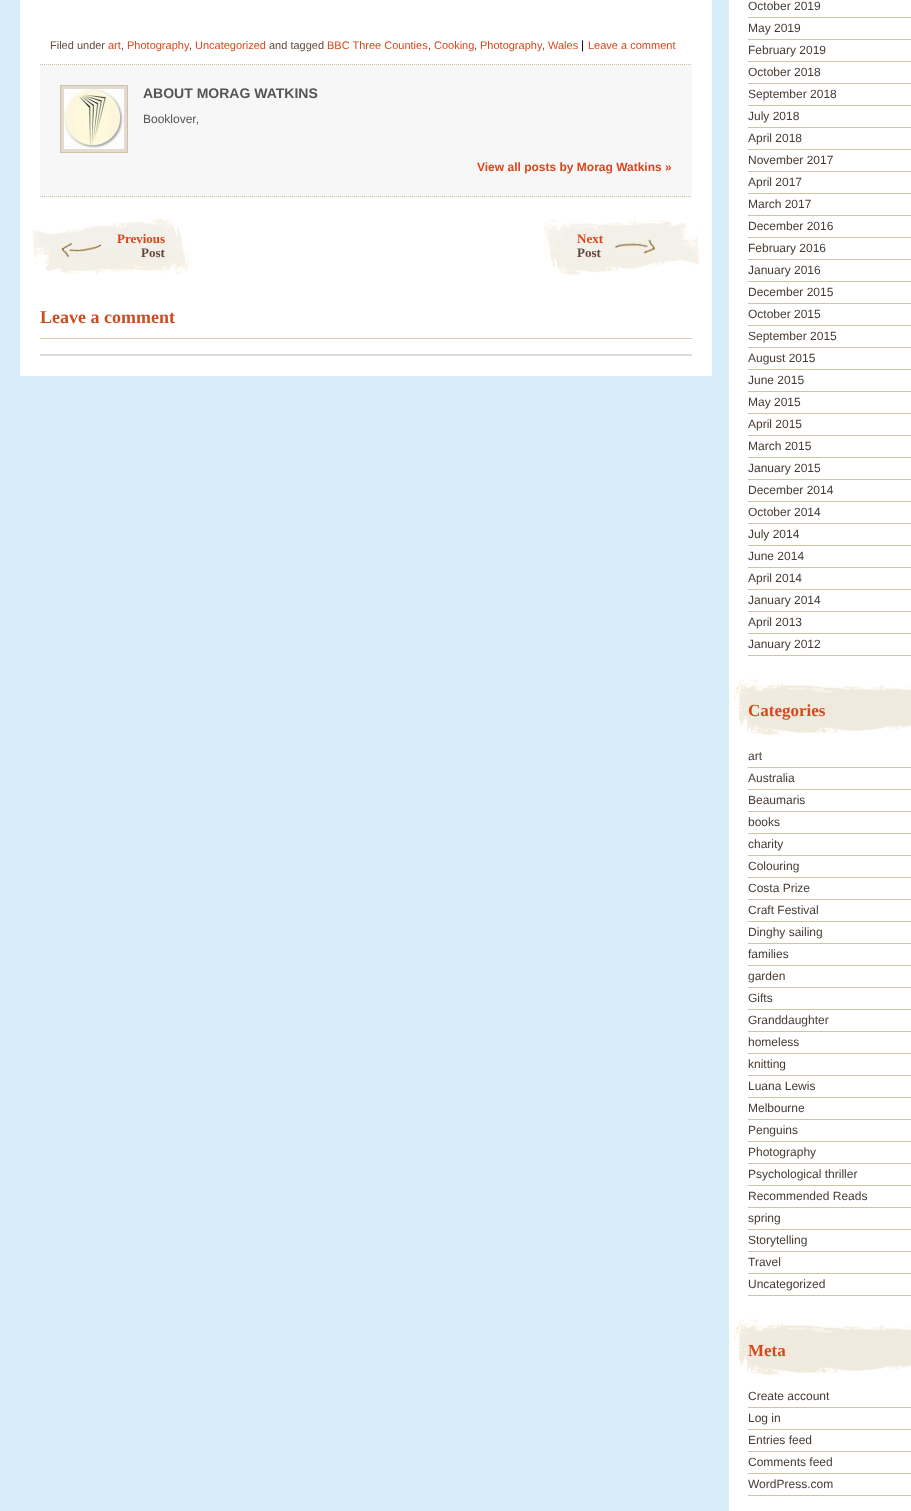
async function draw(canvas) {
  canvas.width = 911;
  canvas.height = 1511;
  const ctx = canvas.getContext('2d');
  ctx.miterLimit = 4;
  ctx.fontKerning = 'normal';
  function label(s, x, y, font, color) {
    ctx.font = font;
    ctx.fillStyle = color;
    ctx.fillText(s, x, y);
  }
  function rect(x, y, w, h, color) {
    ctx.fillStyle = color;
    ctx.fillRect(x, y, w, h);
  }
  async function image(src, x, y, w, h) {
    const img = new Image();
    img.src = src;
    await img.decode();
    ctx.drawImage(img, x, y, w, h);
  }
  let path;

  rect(0, 0, 911, 1511, '#d7ecf9');
  rect(20, 0, 692, 376, '#fff');
  label('Filed under', 50, 49, '11px Liberation Sans', '#644a3d');
  label('art', 108, 49, '11px Liberation Sans', '#d8471d');
  label(',', 121, 49, '11px Liberation Sans', '#644a3d');
  label('Photography', 127, 49, '11px Liberation Sans', '#d8471d');
  label('Uncategorized', 195, 49, '11px Liberation Sans', '#d8471d');
  label('and tagged', 269, 49, '11px Liberation Sans', '#644a3d');
  label('BBC Three Counties', 327, 49, '11px Liberation Sans', '#d8471d');
  label('Cooking', 434, 49, '11px Liberation Sans', '#d8471d');
  label('Photography', 480, 49, '11px Liberation Sans', '#d8471d');
  label('Wales', 548, 49, '11px Liberation Sans', '#d8471d');
  label('|', 581, 49, '12px Liberation Sans', '#000');
  label('Leave a comment', 588, 49, '11px Liberation Sans', '#d8471d');
  label(',', 189, 49, '11px Liberation Sans', '#644a3d');
  label(',', 428, 49, '11px Liberation Sans', '#644a3d');
  label(',', 474, 49, '11px Liberation Sans', '#644a3d');
  label(',', 542, 49, '11px Liberation Sans', '#644a3d');
  rect(40, 64, 652, 133, '#f7f7f7');
  path = new Path2D('M40 64.5H692');
  ctx.strokeStyle = '#d1bfa6';
  ctx.setLineDash([1, 1]);
  ctx.stroke(path);
  path = new Path2D('M40 196.5H692');
  ctx.stroke(path);
  ctx.fillStyle = '#e2dbd1';
  ctx.beginPath();
  ctx.rect(60.5, 85.5, 67, 67);
  ctx.fill();
  ctx.setLineDash([]);
  ctx.stroke();
  await image('assets/img1.png', 64, 89, 60, 60);
  label('ABOUT MORAG WATKINS', 143, 98, 'bold 14px Liberation Sans', '#555');
  label('Booklover,', 143, 123, '12px Liberation Sans', '#555');
  label('View all posts by Morag Watkins »', 477, 171, 'bold 12px Liberation Sans', '#d8471d');
  await image('assets/img2.png', 32, 218, 157, 57);
  label('Previous', 117, 243, 'bold 13px Liberation Serif', '#d8471d');
  label('Post', 141, 257, 'bold 13px Liberation Serif', '#644a3d');
  await image('assets/img3.png', 543, 219, 157, 57);
  label('Next', 577, 243, 'bold 13px Liberation Serif', '#d8471d');
  label('Post', 577, 257, 'bold 13px Liberation Serif', '#644a3d');
  rect(40, 338, 652, 1, '#dacdab');
  label('Leave a comment', 40, 323, 'bold 18px Liberation Serif', '#cc4d22');
  rect(40, 354, 652, 2, '#dcdcde');
  rect(729, 0, 182, 1511, '#fff');
  rect(748, 17, 163, 1, '#d2c4a2');
  label('October 2019', 748, 10, '12px Liberation Sans', '#463b33');
  rect(748, 39, 163, 1, '#d2c4a2');
  label('May 2019', 748, 32, '12px Liberation Sans', '#463b33');
  rect(748, 61, 163, 1, '#d2c4a2');
  label('February 2019', 748, 54, '12px Liberation Sans', '#463b33');
  rect(748, 83, 163, 1, '#d2c4a2');
  label('October 2018', 748, 76, '12px Liberation Sans', '#463b33');
  rect(748, 105, 163, 1, '#d2c4a2');
  label('September 2018', 748, 98, '12px Liberation Sans', '#463b33');
  rect(748, 127, 163, 1, '#d2c4a2');
  label('July 2018', 748, 120, '12px Liberation Sans', '#463b33');
  rect(748, 149, 163, 1, '#d2c4a2');
  label('April 2018', 748, 142, '12px Liberation Sans', '#463b33');
  rect(748, 171, 163, 1, '#d2c4a2');
  label('November 2017', 748, 164, '12px Liberation Sans', '#463b33');
  rect(748, 193, 163, 1, '#d2c4a2');
  label('April 2017', 748, 186, '12px Liberation Sans', '#463b33');
  rect(748, 215, 163, 1, '#d2c4a2');
  label('March 2017', 748, 208, '12px Liberation Sans', '#463b33');
  rect(748, 237, 163, 1, '#d2c4a2');
  label('December 2016', 748, 230, '12px Liberation Sans', '#463b33');
  rect(748, 259, 163, 1, '#d2c4a2');
  label('February 2016', 748, 252, '12px Liberation Sans', '#463b33');
  rect(748, 281, 163, 1, '#d2c4a2');
  label('January 2016', 748, 274, '12px Liberation Sans', '#463b33');
  rect(748, 303, 163, 1, '#d2c4a2');
  label('December 2015', 748, 296, '12px Liberation Sans', '#463b33');
  rect(748, 325, 163, 1, '#d2c4a2');
  label('October 2015', 748, 318, '12px Liberation Sans', '#463b33');
  rect(748, 347, 163, 1, '#d2c4a2');
  label('September 2015', 748, 340, '12px Liberation Sans', '#463b33');
  rect(748, 369, 163, 1, '#d2c4a2');
  label('August 2015', 748, 362, '12px Liberation Sans', '#463b33');
  rect(748, 391, 163, 1, '#d2c4a2');
  label('June 2015', 748, 384, '12px Liberation Sans', '#463b33');
  rect(748, 413, 163, 1, '#d2c4a2');
  label('May 2015', 748, 406, '12px Liberation Sans', '#463b33');
  rect(748, 435, 163, 1, '#d2c4a2');
  label('April 2015', 748, 428, '12px Liberation Sans', '#463b33');
  rect(748, 457, 163, 1, '#d2c4a2');
  label('March 2015', 748, 450, '12px Liberation Sans', '#463b33');
  rect(748, 479, 163, 1, '#d2c4a2');
  label('January 2015', 748, 472, '12px Liberation Sans', '#463b33');
  rect(748, 501, 163, 1, '#d2c4a2');
  label('December 2014', 748, 494, '12px Liberation Sans', '#463b33');
  rect(748, 523, 163, 1, '#d2c4a2');
  label('October 2014', 748, 516, '12px Liberation Sans', '#463b33');
  rect(748, 545, 163, 1, '#d2c4a2');
  label('July 2014', 748, 538, '12px Liberation Sans', '#463b33');
  rect(748, 567, 163, 1, '#d2c4a2');
  label('June 2014', 748, 560, '12px Liberation Sans', '#463b33');
  rect(748, 589, 163, 1, '#d2c4a2');
  label('April 2014', 748, 582, '12px Liberation Sans', '#463b33');
  rect(748, 611, 163, 1, '#d2c4a2');
  label('January 2014', 748, 604, '12px Liberation Sans', '#463b33');
  rect(748, 633, 163, 1, '#d2c4a2');
  label('April 2013', 748, 626, '12px Liberation Sans', '#463b33');
  rect(748, 655, 163, 1, '#d2c4a2');
  label('January 2012', 748, 648, '12px Liberation Sans', '#463b33');
  await image('assets/img4.png', 734, 679, 177, 57);
  label('Categories', 748, 716, 'bold 17px Liberation Serif', '#d8471d');
  rect(748, 767, 163, 1, '#d2c4a2');
  label('art', 748, 760, '12px Liberation Sans', '#463b33');
  rect(748, 789, 163, 1, '#d2c4a2');
  label('Australia', 748, 782, '12px Liberation Sans', '#463b33');
  rect(748, 811, 163, 1, '#d2c4a2');
  label('Beaumaris', 748, 804, '12px Liberation Sans', '#463b33');
  rect(748, 833, 163, 1, '#d2c4a2');
  label('books', 748, 826, '12px Liberation Sans', '#463b33');
  rect(748, 855, 163, 1, '#d2c4a2');
  label('charity', 748, 848, '12px Liberation Sans', '#463b33');
  rect(748, 877, 163, 1, '#d2c4a2');
  label('Colouring', 748, 870, '12px Liberation Sans', '#463b33');
  rect(748, 899, 163, 1, '#d2c4a2');
  label('Costa Prize', 748, 892, '12px Liberation Sans', '#463b33');
  rect(748, 921, 163, 1, '#d2c4a2');
  label('Craft Festival', 748, 914, '12px Liberation Sans', '#463b33');
  rect(748, 943, 163, 1, '#d2c4a2');
  label('Dinghy sailing', 748, 936, '12px Liberation Sans', '#463b33');
  rect(748, 965, 163, 1, '#d2c4a2');
  label('families', 748, 958, '12px Liberation Sans', '#463b33');
  rect(748, 987, 163, 1, '#d2c4a2');
  label('garden', 748, 980, '12px Liberation Sans', '#463b33');
  rect(748, 1009, 163, 1, '#d2c4a2');
  label('Gifts', 748, 1002, '12px Liberation Sans', '#463b33');
  rect(748, 1031, 163, 1, '#d2c4a2');
  label('Granddaughter', 748, 1024, '12px Liberation Sans', '#463b33');
  rect(748, 1053, 163, 1, '#d2c4a2');
  label('homeless', 748, 1046, '12px Liberation Sans', '#463b33');
  rect(748, 1075, 163, 1, '#d2c4a2');
  label('knitting', 748, 1068, '12px Liberation Sans', '#463b33');
  rect(748, 1097, 163, 1, '#d2c4a2');
  label('Luana Lewis', 748, 1090, '12px Liberation Sans', '#463b33');
  rect(748, 1119, 163, 1, '#d2c4a2');
  label('Melbourne', 748, 1112, '12px Liberation Sans', '#463b33');
  rect(748, 1141, 163, 1, '#d2c4a2');
  label('Penguins', 748, 1134, '12px Liberation Sans', '#463b33');
  rect(748, 1163, 163, 1, '#d2c4a2');
  label('Photography', 748, 1156, '12px Liberation Sans', '#463b33');
  rect(748, 1185, 163, 1, '#d2c4a2');
  label('Psychological thriller', 748, 1178, '12px Liberation Sans', '#463b33');
  rect(748, 1207, 163, 1, '#d2c4a2');
  label('Recommended Reads', 748, 1200, '12px Liberation Sans', '#463b33');
  rect(748, 1229, 163, 1, '#d2c4a2');
  label('spring', 748, 1222, '12px Liberation Sans', '#463b33');
  rect(748, 1251, 163, 1, '#d2c4a2');
  label('Storytelling', 748, 1244, '12px Liberation Sans', '#463b33');
  rect(748, 1273, 163, 1, '#d2c4a2');
  label('Travel', 748, 1266, '12px Liberation Sans', '#463b33');
  rect(748, 1295, 163, 1, '#d2c4a2');
  label('Uncategorized', 748, 1288, '12px Liberation Sans', '#463b33');
  await image('assets/img4.png', 734, 1319, 177, 57);
  label('Meta', 748, 1356, 'bold 17px Liberation Serif', '#d8471d');
  rect(748, 1407, 163, 1, '#d2c4a2');
  label('Create account', 748, 1400, '12px Liberation Sans', '#463b33');
  rect(748, 1429, 163, 1, '#d2c4a2');
  label('Log in', 748, 1422, '12px Liberation Sans', '#463b33');
  rect(748, 1451, 163, 1, '#d2c4a2');
  label('Entries feed', 748, 1444, '12px Liberation Sans', '#463b33');
  rect(748, 1473, 163, 1, '#d2c4a2');
  label('Comments feed', 748, 1466, '12px Liberation Sans', '#463b33');
  rect(748, 1495, 163, 1, '#d2c4a2');
  label('WordPress.com', 748, 1488, '12px Liberation Sans', '#463b33');
}

draw(document.querySelector('canvas'));
